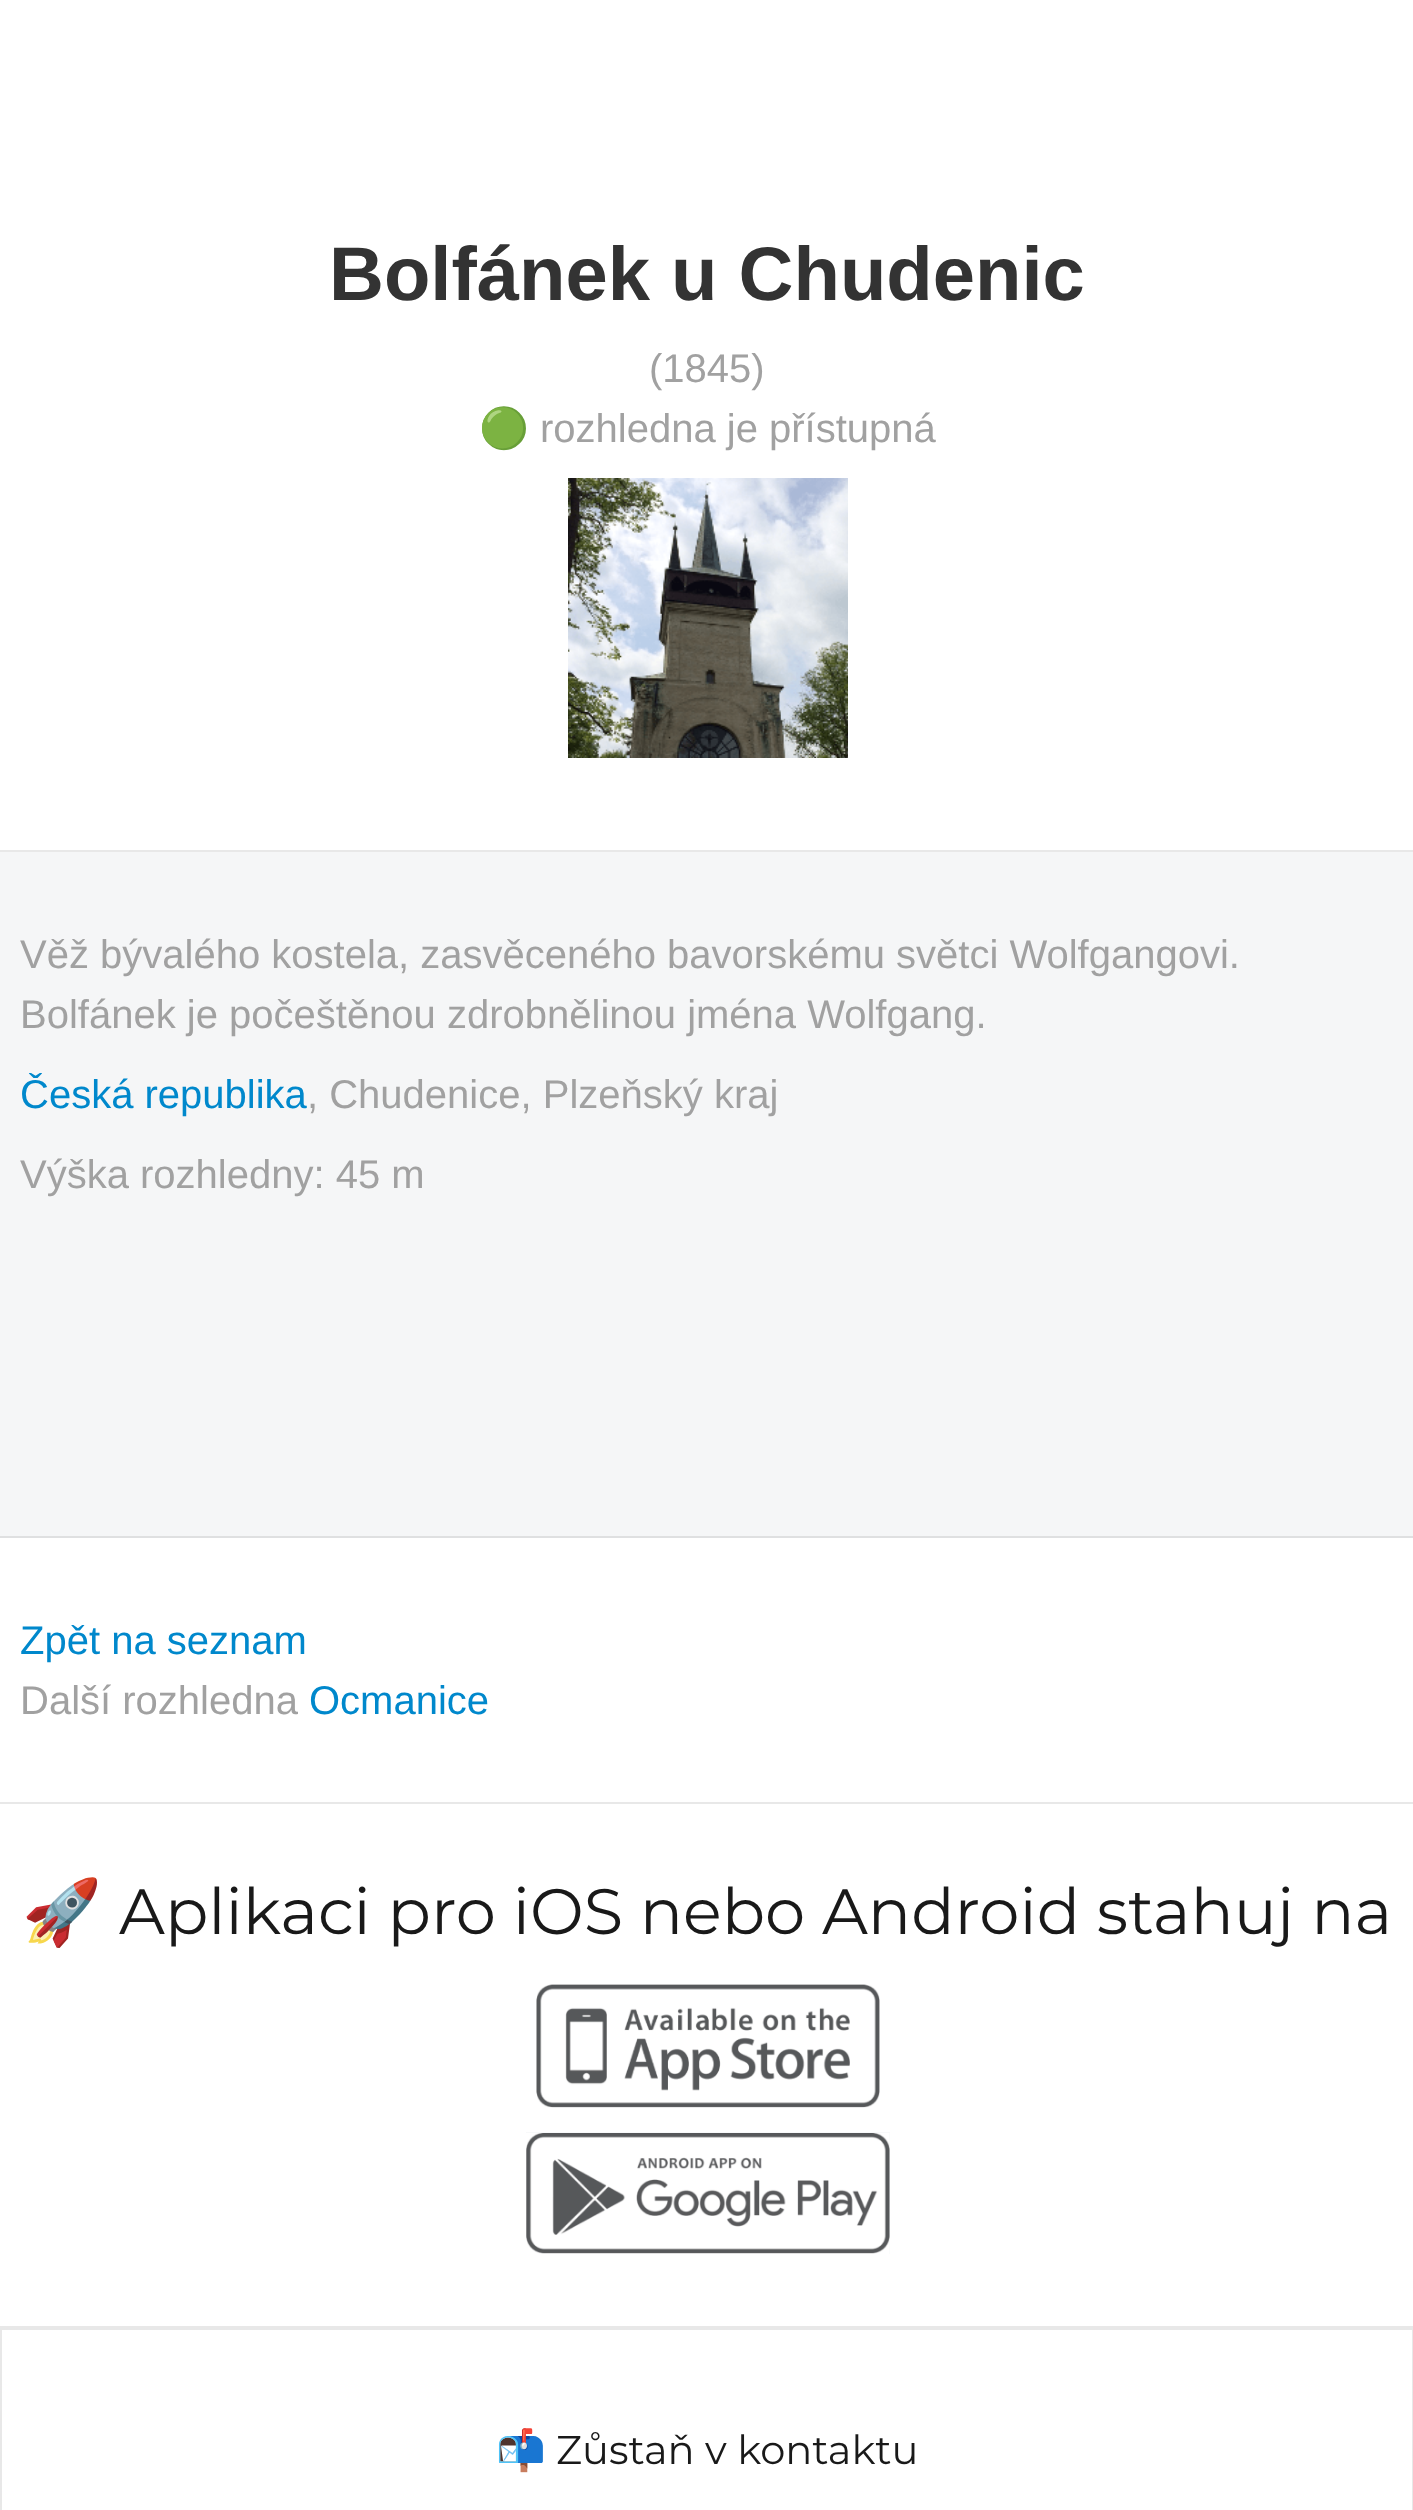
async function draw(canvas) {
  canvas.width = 1413;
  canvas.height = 2510;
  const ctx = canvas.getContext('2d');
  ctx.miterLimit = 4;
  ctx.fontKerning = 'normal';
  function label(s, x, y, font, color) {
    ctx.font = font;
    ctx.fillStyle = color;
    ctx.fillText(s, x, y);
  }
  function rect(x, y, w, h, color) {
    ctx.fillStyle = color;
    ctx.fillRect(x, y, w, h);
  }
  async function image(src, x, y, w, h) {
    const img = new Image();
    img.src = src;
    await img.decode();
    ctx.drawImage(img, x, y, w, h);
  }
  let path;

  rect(0, 0, 1413, 2510, '#fff');
  label('Bolfánek u Chudenic', 329, 300, 'bold 76px Liberation Sans', '#333');
  rect(0, 850, 1413, 2, '#e8e8e8');
  label('(1845)', 649, 382, '40px Liberation Sans', '#a1a1a1');
  label('🟢', 479, 442, '40px Noto Color Emoji', '#a1a1a1');
  label('rozhledna je přístupná', 540, 442, '40px Liberation Sans', '#a1a1a1');
  await image('assets/img1.png', 568, 478, 280, 280);
  rect(0, 852, 1413, 684, '#f5f6f7');
  rect(0, 1536, 1413, 2, '#dfe0e1');
  label('Věž bývalého kostela, zasvěceného bavorskému světci Wolfgangovi.', 20, 968, '40px Liberation Sans', '#a1a1a1');
  label('Bolfánek je počeštěnou zdrobnělinou jména Wolfgang.', 20, 1028, '40px Liberation Sans', '#a1a1a1');
  label('Česká republika', 20, 1108, '40px Liberation Sans', '#08c');
  label(', Chudenice, Plzeňský kraj', 307, 1108, '40px Liberation Sans', '#a1a1a1');
  label('Výška rozhledny: 45 m', 20, 1188, '40px Liberation Sans', '#a1a1a1');
  rect(0, 1802, 1413, 2, '#e8e8e8');
  label('Zpět na seznam', 20, 1654, '40px Liberation Sans', '#08c');
  label('Další rozhledna', 20, 1714, '40px Liberation Sans', '#a1a1a1');
  label('Ocmanice', 309, 1714, '40px Liberation Sans', '#08c');
  rect(0, 2326, 1413, 2, '#e8e8e8');
  label('🚀', 22, 1934, '64px Noto Color Emoji', '#191919');
  label('Aplikaci pro iOS nebo Android stahuj na', 119, 1934, '64px Montserrat', '#191919');
  await image('assets/img2.png', 536, 1984, 344, 124);
  await image('assets/img3.png', 526, 2132, 364, 122);
  ctx.fillStyle = '#e8e8e8';
  path = new Path2D('M0 2328H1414L1412 2330H2Z');
  ctx.fill(path);
  ctx.fillStyle = '#00000017';
  path = new Path2D('M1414 2328V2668H1412V2330Z');
  ctx.fill(path);
  path = new Path2D('M0 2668V2328L2 2330V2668Z');
  ctx.fill(path);
  label('📬', 496, 2464, '40px Noto Color Emoji', '#191919');
  label('Zůstaň v kontaktu', 556, 2464, '40px Montserrat', '#191919');
}

draw(document.querySelector('canvas'));
